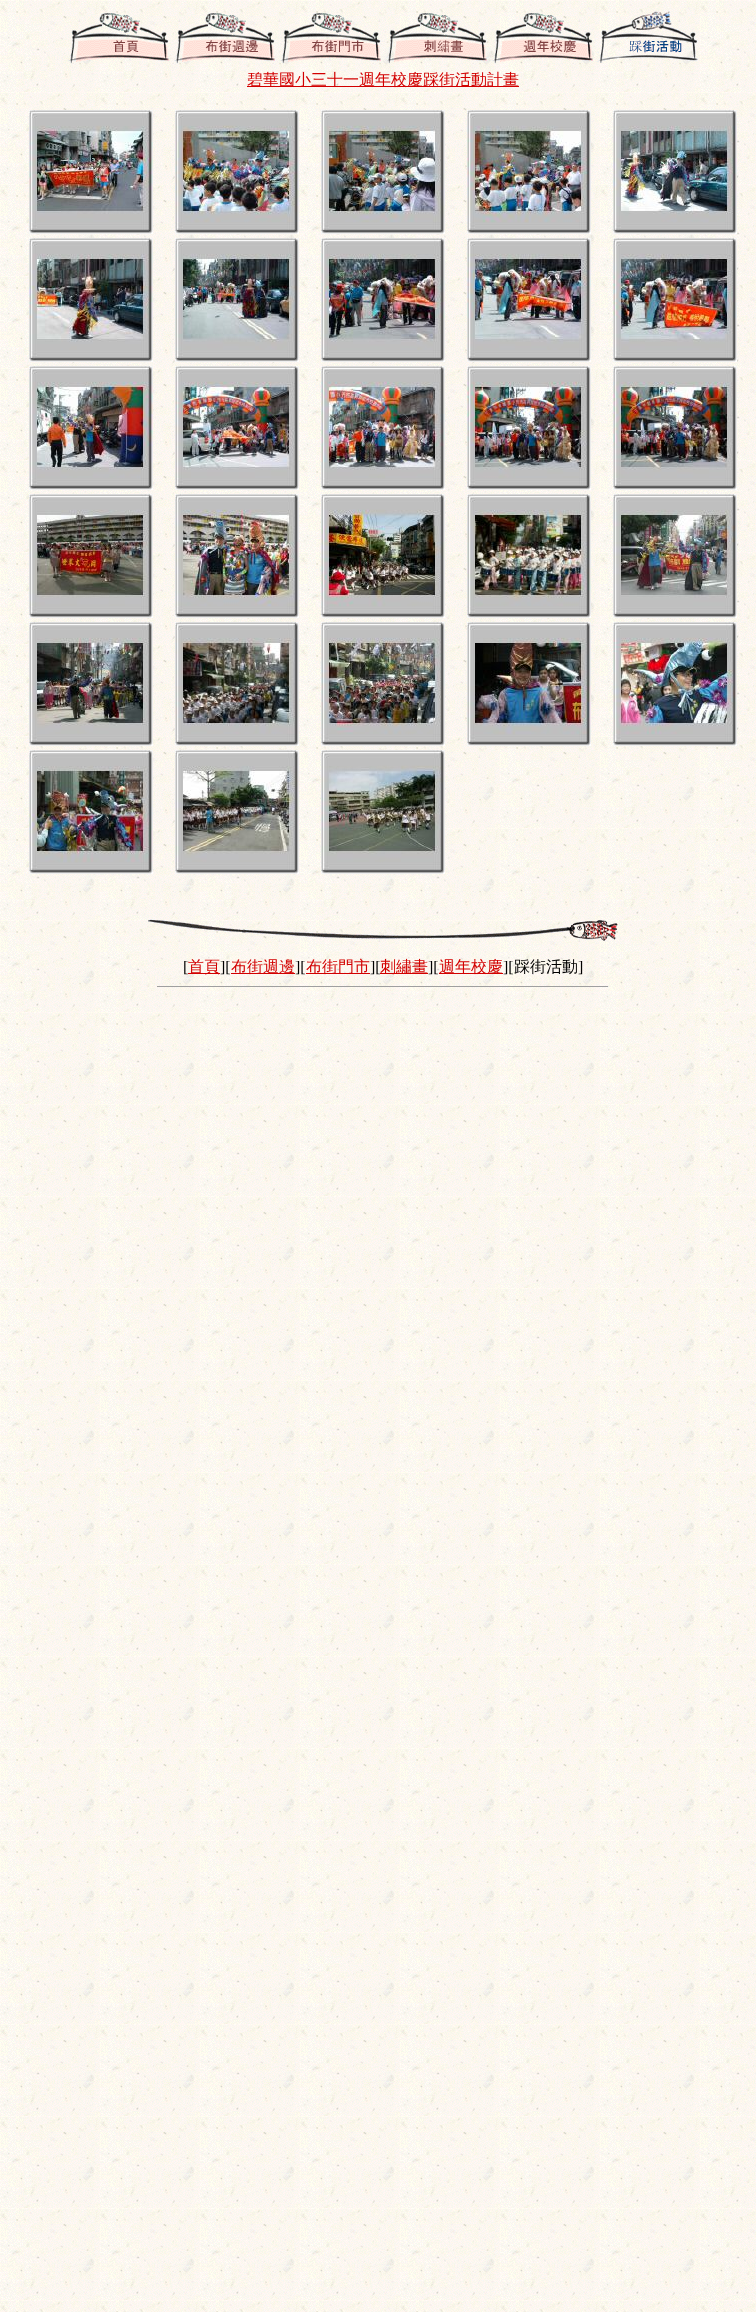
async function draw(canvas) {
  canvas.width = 756;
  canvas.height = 2312;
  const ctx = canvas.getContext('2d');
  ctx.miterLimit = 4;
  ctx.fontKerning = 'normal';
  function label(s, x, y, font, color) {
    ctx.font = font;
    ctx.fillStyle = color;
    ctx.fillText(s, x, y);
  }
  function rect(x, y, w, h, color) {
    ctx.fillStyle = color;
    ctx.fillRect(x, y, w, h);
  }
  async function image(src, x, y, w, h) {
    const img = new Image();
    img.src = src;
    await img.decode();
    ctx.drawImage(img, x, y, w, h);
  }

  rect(0, 0, 756, 2312, '#fff');
  await image('assets/img1.png', 0, 0, 756, 2312);
  await image('assets/img2.png', 68, 13, 101, 51);
  await image('assets/img3.png', 174, 13, 101, 51);
  await image('assets/img4.png', 280, 13, 101, 51);
  await image('assets/img5.png', 386, 13, 101, 51);
  await image('assets/img6.png', 492, 13, 101, 51);
  await image('assets/img7.png', 597, 11, 101, 52);
  rect(247, 86, 272, 1, '#d20000');
  label('碧華國小三十一週年校慶踩街活動計畫', 247, 85, '500 16px WenQuanYi Zen Hei', '#d20000');
  await image('assets/img8.png', 29, 110, 124, 124);
  await image('assets/img9.png', 175, 110, 124, 124);
  await image('assets/img10.png', 321, 110, 124, 124);
  await image('assets/img11.png', 467, 110, 124, 124);
  await image('assets/img12.png', 613, 110, 124, 124);
  await image('assets/img13.png', 29, 238, 124, 124);
  await image('assets/img14.png', 175, 238, 124, 124);
  await image('assets/img15.png', 321, 238, 124, 124);
  await image('assets/img16.png', 467, 238, 124, 124);
  await image('assets/img17.png', 613, 238, 124, 124);
  await image('assets/img18.png', 29, 366, 124, 124);
  await image('assets/img19.png', 175, 366, 124, 124);
  await image('assets/img20.png', 321, 366, 124, 124);
  await image('assets/img21.png', 467, 366, 124, 124);
  await image('assets/img22.png', 613, 366, 124, 124);
  await image('assets/img23.png', 29, 494, 124, 124);
  await image('assets/img24.png', 175, 494, 124, 124);
  await image('assets/img25.png', 321, 494, 124, 124);
  await image('assets/img26.png', 467, 494, 124, 124);
  await image('assets/img27.png', 613, 494, 124, 124);
  await image('assets/img28.png', 29, 622, 124, 124);
  await image('assets/img29.png', 175, 622, 124, 124);
  await image('assets/img30.png', 321, 622, 124, 124);
  await image('assets/img31.png', 467, 622, 124, 124);
  await image('assets/img32.png', 613, 622, 124, 124);
  await image('assets/img33.png', 29, 750, 124, 124);
  await image('assets/img34.png', 175, 750, 124, 124);
  await image('assets/img35.png', 321, 750, 124, 124);
  await image('assets/img36.png', 148, 919, 470, 22);
  label('[', 183, 972, '16px Liberation Serif', '#000');
  rect(188, 973, 32, 1, '#d20000');
  label('首頁', 188, 972, '500 16px WenQuanYi Zen Hei', '#d20000');
  label('][', 220, 972, '16px Liberation Serif', '#000');
  rect(231, 973, 64, 1, '#d20000');
  label('布街週邊', 231, 972, '500 16px WenQuanYi Zen Hei', '#d20000');
  label('][', 295, 972, '16px Liberation Serif', '#000');
  rect(306, 973, 64, 1, '#d20000');
  label('布街門市', 306, 972, '500 16px WenQuanYi Zen Hei', '#d20000');
  label('][', 370, 972, '16px Liberation Serif', '#000');
  rect(380, 973, 48, 1, '#d20000');
  label('刺繡畫', 380, 972, '500 16px WenQuanYi Zen Hei', '#d20000');
  label('][', 428, 972, '16px Liberation Serif', '#000');
  rect(439, 973, 64, 1, '#d20000');
  label('週年校慶', 439, 972, '500 16px WenQuanYi Zen Hei', '#d20000');
  label('][', 503, 972, '16px Liberation Serif', '#000');
  label('踩街活動', 514, 972, '500 16px WenQuanYi Zen Hei', '#000');
  label(']', 578, 972, '16px Liberation Serif', '#000');
  rect(157, 986, 452, 1, '#9f9f9f');
  rect(608, 986, 1, 1, '#eee');
}

draw(document.querySelector('canvas'));
